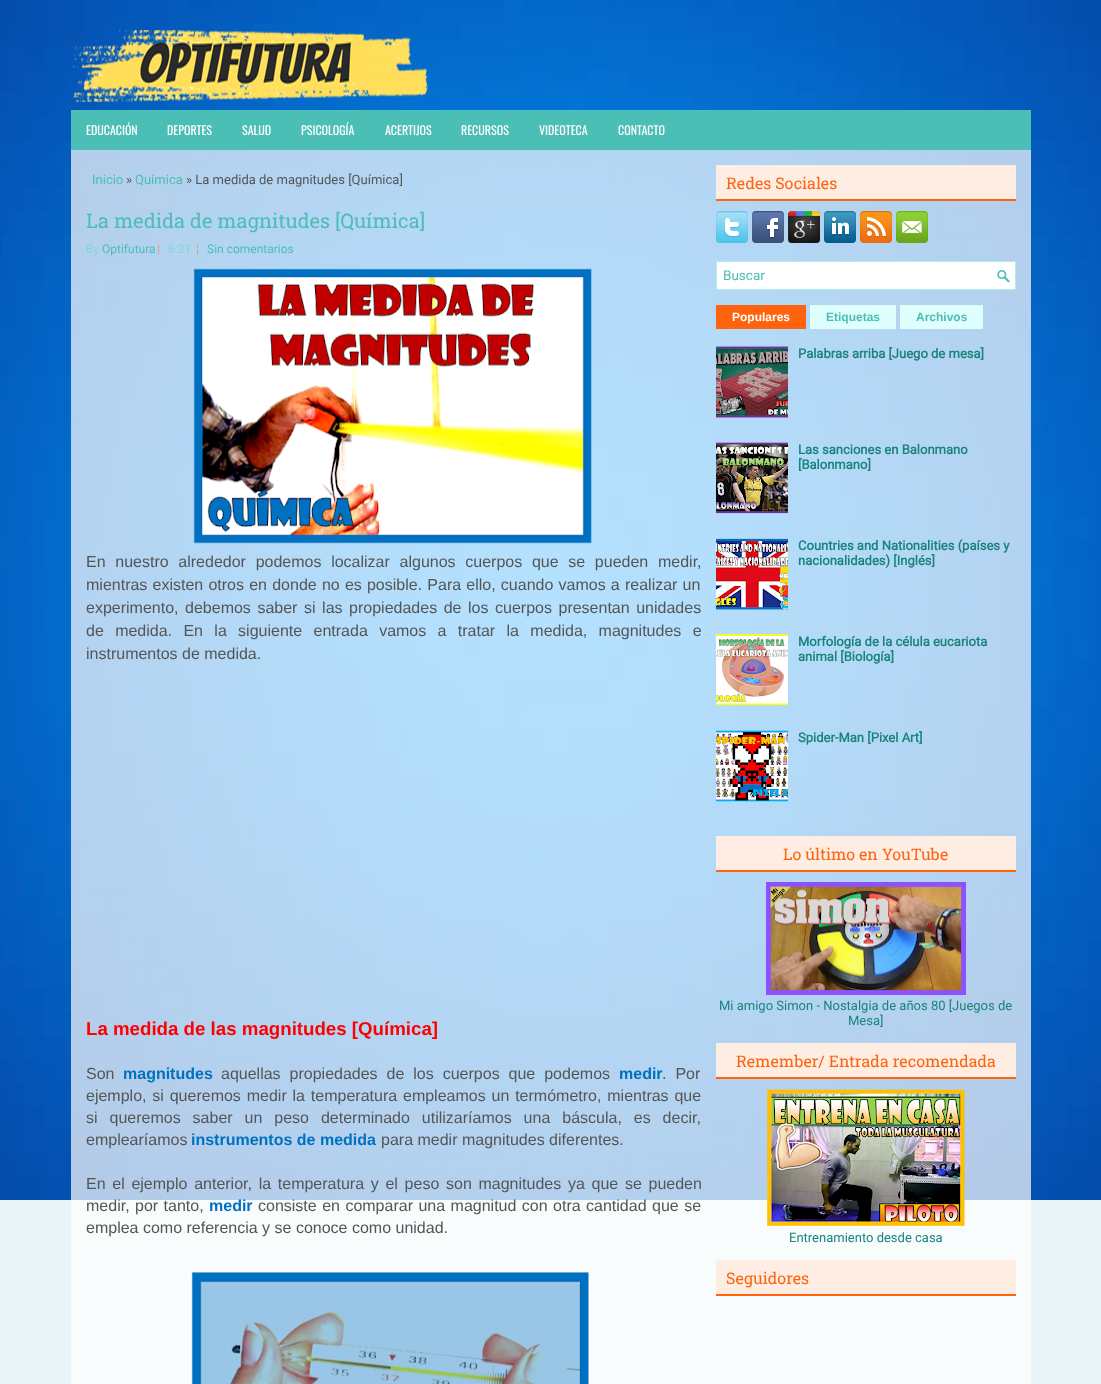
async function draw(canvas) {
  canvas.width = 1101;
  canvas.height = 1384;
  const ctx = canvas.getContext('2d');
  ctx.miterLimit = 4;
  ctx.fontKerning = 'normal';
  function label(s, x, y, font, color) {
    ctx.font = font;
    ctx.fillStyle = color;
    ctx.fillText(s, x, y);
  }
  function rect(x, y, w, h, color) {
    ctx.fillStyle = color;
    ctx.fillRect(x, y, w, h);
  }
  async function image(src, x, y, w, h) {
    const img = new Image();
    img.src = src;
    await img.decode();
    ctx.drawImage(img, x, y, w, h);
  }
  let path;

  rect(0, 0, 1101, 1384, '#e8f4f8');
  await image('assets/img1.png', 0, 0, 1101, 1200);
  await image('assets/img2.png', 71, 30, 357, 72);
  rect(71, 110, 960, 40, '#4bbeb5');
  label('EDUCACIÓN', 86, 135, '12px Oswald', '#fff');
  label('DEPORTES', 167, 135, '12px Oswald', '#fff');
  label('SALUD', 242, 135, '12px Oswald', '#fff');
  label('PSICOLOGÍA', 301, 135, '12px Oswald', '#fff');
  label('ACERTIJOS', 385, 135, '12px Oswald', '#fff');
  label('RECURSOS', 461, 135, '12px Oswald', '#fff');
  label('VIDEOTECA', 539, 135, '12px Oswald', '#fff');
  label('CONTACTO', 618, 135, '12px Oswald', '#fff');
  rect(71, 150, 960, 1234, '#ffffffb3');
  path = new Path2D('M86 165.5H701');
  ctx.strokeStyle = '#ccc';
  ctx.setLineDash([1, 1]);
  ctx.stroke(path);
  path = new Path2D('M700.5 165V195');
  ctx.stroke(path);
  path = new Path2D('M86 194.5H701');
  ctx.stroke(path);
  path = new Path2D('M86.5 165V195');
  ctx.stroke(path);
  label('Inicio', 92, 184, '13px Roboto', '#4bbeb5');
  label('»', 126, 184, '13px Roboto', '#555');
  label('Química', 135, 184, '13px Roboto', '#4bbeb5');
  label('» La medida de magnitudes [Química]', 186, 184, '13px Roboto', '#555');
  label('La medida de magnitudes [Química]', 86, 228, '20px Roboto Slab', '#4bbeb5');
  label('By', 86, 253, '12px Roboto', '#7fdad3');
  label('Optifutura', 102, 253, '12px Roboto', '#4bbeb5');
  await image('assets/img3.png', 158, 245, 1, 9);
  label('6:21', 168, 253, '12px Roboto', '#7fdad3');
  await image('assets/img4.png', 197, 245, 1, 9);
  label('Sin comentarios', 207, 253, '12px Roboto', '#4bbeb5');
  await image('assets/img5.png', 193, 268, 399, 276);
  ctx.wordSpacing = '5.25px';
  label('En nuestro alrededor podemos localizar algunos cuerpos que se pueden medir,', 86, 567, '16px Liberation Sans', '#555');
  ctx.wordSpacing = '0.75px';
  label('mientras existen otros en donde no es posible. Para ello, cuando vamos a realizar un', 86, 590, '16px Liberation Sans', '#555');
  ctx.wordSpacing = '2.1px';
  label('experimento, debemos saber si las propiedades de los cuerpos presentan unidades', 86, 613, '16px Liberation Sans', '#555');
  ctx.wordSpacing = '6.9px';
  label('de medida. En la siguiente entrada vamos a tratar la medida, magnitudes e', 86, 636, '16px Liberation Sans', '#555');
  ctx.wordSpacing = '0px';
  label('instrumentos de medida.', 86, 659, '16px Liberation Sans', '#555');
  label('La medida de las magnitudes [Química]', 86, 1035, 'bold 18.7px Liberation Sans', '#f00');
  label('Son', 86, 1079, '16px Liberation Sans', '#555');
  label('magnitudes', 123, 1079, 'bold 16px Liberation Sans', '#0070c0');
  ctx.wordSpacing = '4.5px';
  label('aquellas propiedades de los cuerpos que podemos', 221, 1079, '16px Liberation Sans', '#555');
  ctx.wordSpacing = '0px';
  label('medir', 619, 1079, 'bold 16px Liberation Sans', '#0070c0');
  ctx.wordSpacing = '4.5px';
  label('. Por', 662, 1079, '16px Liberation Sans', '#555');
  ctx.wordSpacing = '1.4px';
  label('ejemplo, si queremos medir la temperatura empleamos un termómetro, mientras que', 86, 1101, '16px Liberation Sans', '#555');
  ctx.wordSpacing = '7.5px';
  label('si queremos saber un peso determinado utilizaríamos una báscula, es decir,', 86, 1123, '16px Liberation Sans', '#555');
  ctx.wordSpacing = '0px';
  label('emplearíamos', 86, 1145, '16px Liberation Sans', '#555');
  label('instrumentos de medida', 191, 1145, 'bold 16px Liberation Sans', '#0070c0');
  label('para medir magnitudes diferentes.', 381, 1145, '16px Liberation Sans', '#555');
  ctx.wordSpacing = '2.25px';
  label('En el ejemplo anterior, la temperatura y el peso son magnitudes ya que se pueden', 86, 1189, '16px Liberation Sans', '#555');
  ctx.wordSpacing = '1px';
  label('medir, por tanto,', 86, 1211, '16px Liberation Sans', '#555');
  ctx.wordSpacing = '0px';
  label('medir', 209, 1211, 'bold 16px Liberation Sans', '#0070c0');
  ctx.wordSpacing = '1px';
  label('consiste en comparar una magnitud con otra cantidad que se', 258, 1211, '16px Liberation Sans', '#555');
  ctx.wordSpacing = '0px';
  label('emplea como referencia y se conoce como unidad.', 86, 1233, '16px Liberation Sans', '#555');
  await image('assets/img6.png', 191, 1272, 399, 112);
  rect(716, 165, 300, 34, '#feede3');
  rect(716, 199, 300, 2, '#ff630e');
  label('Redes Sociales', 726, 189, '16px Roboto Slab', '#ff630e');
  await image('assets/img7.png', 716, 211, 32, 32);
  await image('assets/img8.png', 752, 211, 32, 32);
  await image('assets/img9.png', 788, 211, 32, 32);
  await image('assets/img10.png', 824, 211, 32, 32);
  await image('assets/img11.png', 860, 211, 32, 32);
  await image('assets/img12.png', 896, 211, 32, 32);
  rect(717, 262, 298, 27, '#fff');
  await image('assets/img13.png', 997, 270, 13, 13);
  ctx.strokeStyle = '#b3ece7';
  ctx.setLineDash([]);
  ctx.strokeRect(716.5, 261.5, 299, 28);
  label('Buscar', 723, 280, '13.5px Roboto', '#4bbeb5');
  rect(716, 305, 90, 24, '#ff630e');
  label('Populares', 732, 321, 'bold 12px Liberation Sans', '#fff');
  rect(810, 305, 86, 24, '#dffffc');
  label('Etiquetas', 826, 321, 'bold 12px Liberation Sans', '#4bbeb5');
  rect(900, 305, 83, 24, '#dffffc');
  label('Archivos', 916, 321, 'bold 12px Liberation Sans', '#4bbeb5');
  await image('assets/img14.png', 716, 346, 72, 72);
  label('Palabras arriba [Juego de mesa]', 798, 358, 'bold 13px Roboto', '#19847c');
  await image('assets/img15.png', 716, 442, 72, 72);
  label('Las sanciones en Balonmano', 798, 454, 'bold 13px Roboto', '#19847c');
  label('[Balonmano]', 798, 469, 'bold 13px Roboto', '#19847c');
  await image('assets/img16.png', 716, 538, 72, 72);
  label('Countries and Nationalities (países y', 798, 550, 'bold 13px Roboto', '#19847c');
  label('nacionalidades) [Inglés]', 798, 565, 'bold 13px Roboto', '#19847c');
  await image('assets/img17.png', 716, 634, 72, 72);
  label('Morfología de la célula eucariota', 798, 646, 'bold 13px Roboto', '#19847c');
  label('animal [Biología]', 798, 661, 'bold 13px Roboto', '#19847c');
  await image('assets/img18.png', 716, 730, 72, 72);
  label('Spider-Man [Pixel Art]', 798, 742, 'bold 13px Roboto', '#19847c');
  rect(716, 836, 300, 34, '#feede3');
  rect(716, 870, 300, 2, '#ff630e');
  label('Lo último en YouTube', 783, 860, '16px Roboto Slab', '#ff630e');
  await image('assets/img19.png', 766, 882, 200, 113);
  label('Mi amigo Simon - Nostalgia de años 80 [Juegos de', 719, 1010, '13px Roboto', '#19847c');
  label('Mesa]', 848, 1025, '13px Roboto', '#19847c');
  rect(716, 1043, 300, 34, '#feede3');
  rect(716, 1077, 300, 2, '#ff630e');
  label('Remember/ Entrada recomendada', 736, 1067, '16px Roboto Slab', '#ff630e');
  await image('assets/img20.png', 767, 1089, 198, 137);
  label('Entrenamiento desde casa', 789, 1242, '13px Roboto', '#19847c');
  rect(716, 1260, 300, 34, '#feede3');
  rect(716, 1294, 300, 2, '#ff630e');
  label('Seguidores', 726, 1284, '16px Roboto Slab', '#ff630e');
}

draw(document.querySelector('canvas'));
